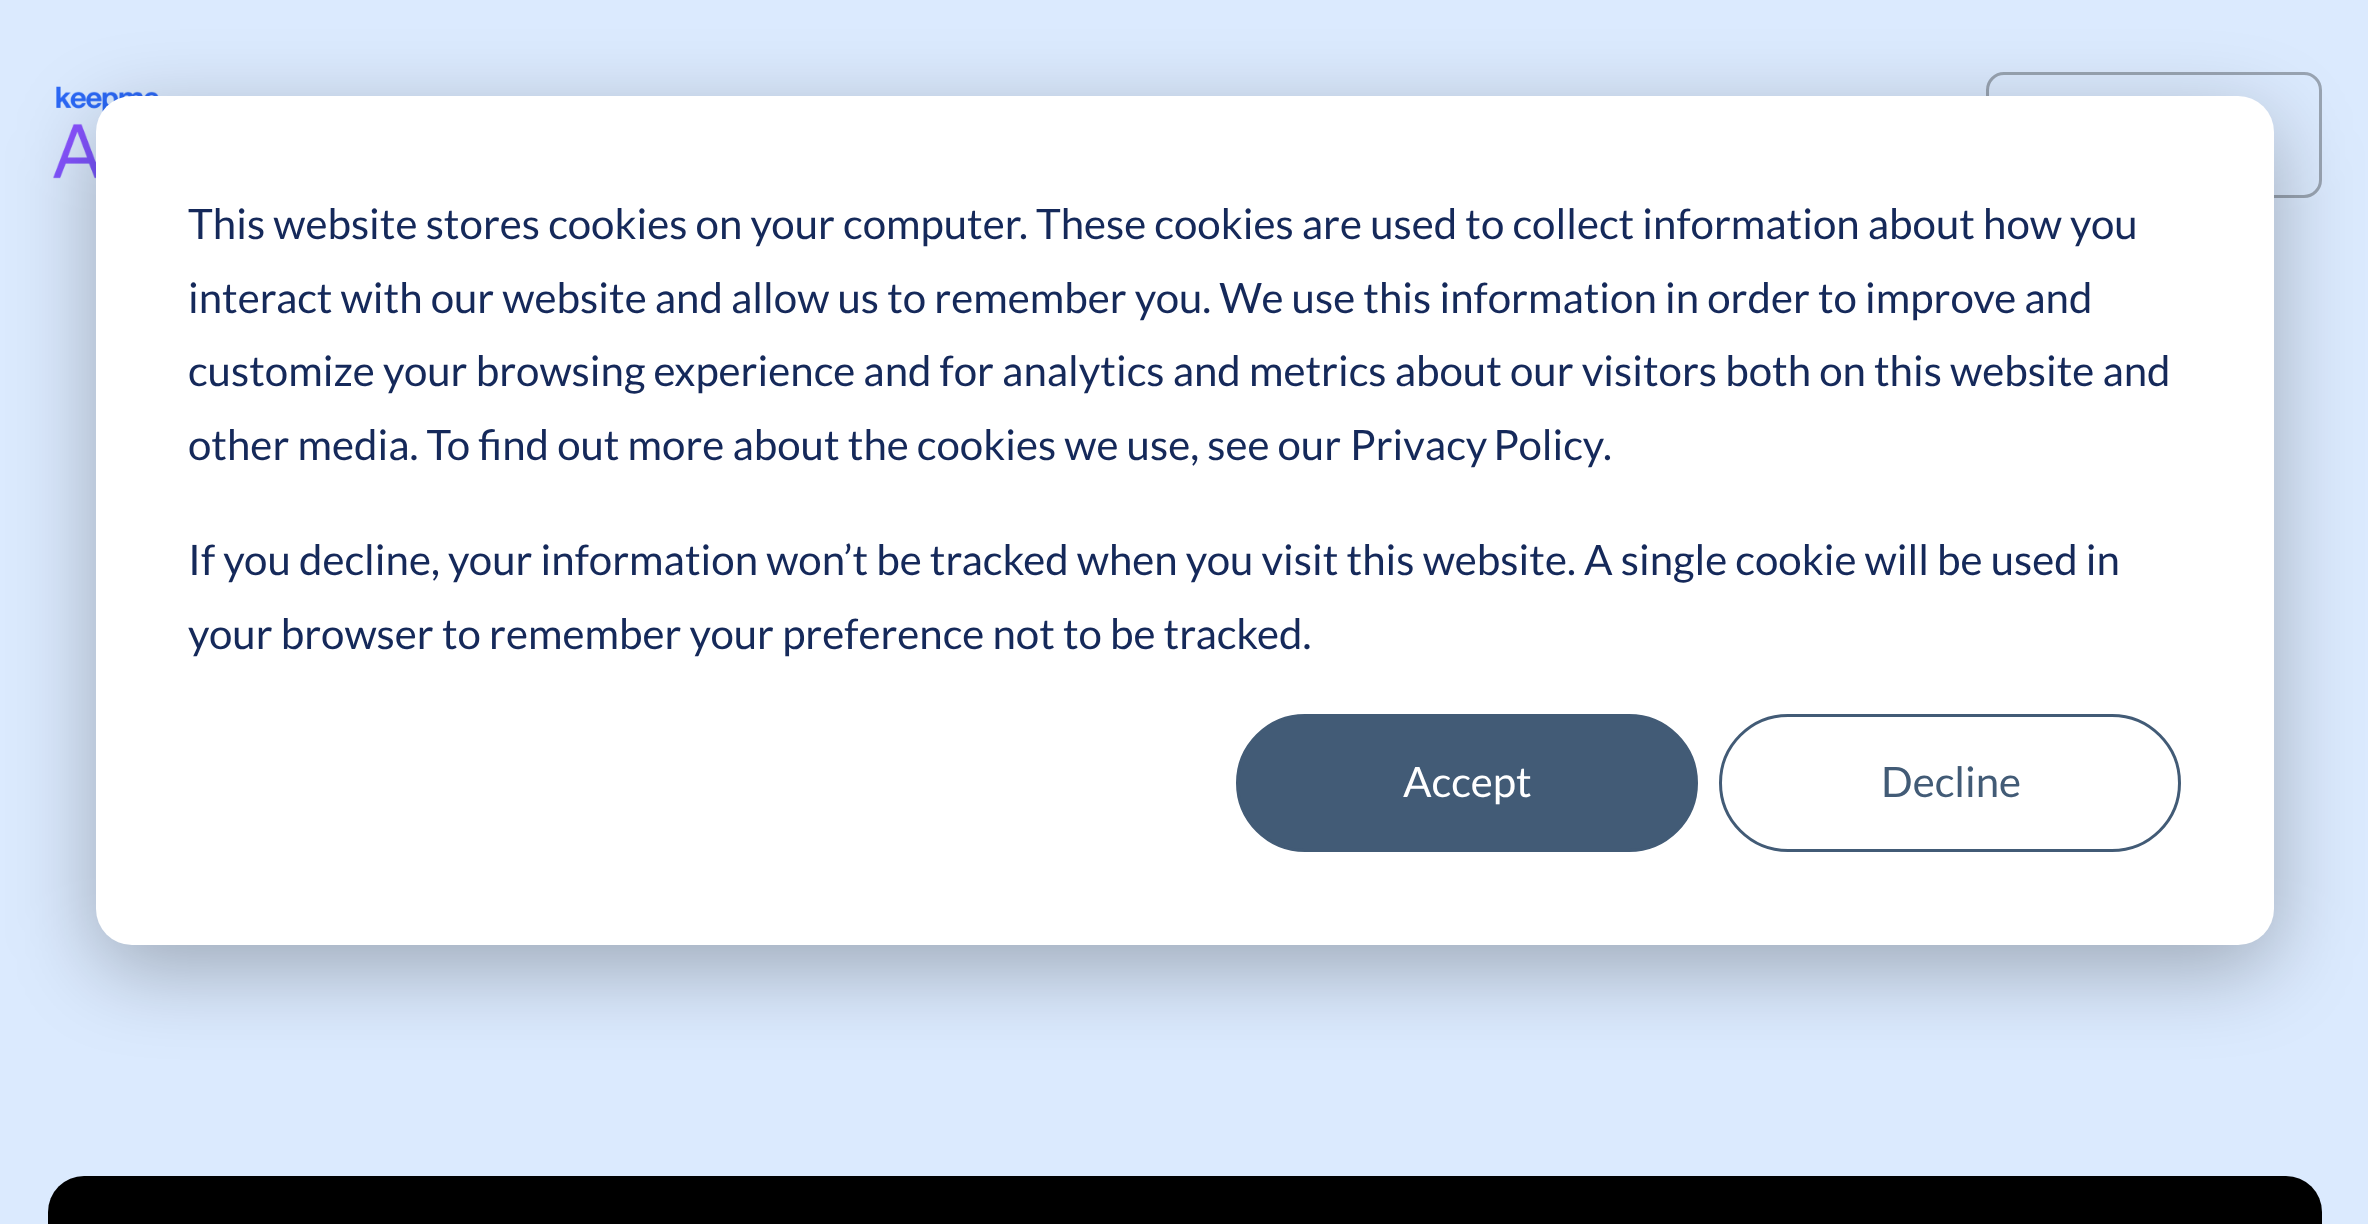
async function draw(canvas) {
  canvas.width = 2368;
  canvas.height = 1224;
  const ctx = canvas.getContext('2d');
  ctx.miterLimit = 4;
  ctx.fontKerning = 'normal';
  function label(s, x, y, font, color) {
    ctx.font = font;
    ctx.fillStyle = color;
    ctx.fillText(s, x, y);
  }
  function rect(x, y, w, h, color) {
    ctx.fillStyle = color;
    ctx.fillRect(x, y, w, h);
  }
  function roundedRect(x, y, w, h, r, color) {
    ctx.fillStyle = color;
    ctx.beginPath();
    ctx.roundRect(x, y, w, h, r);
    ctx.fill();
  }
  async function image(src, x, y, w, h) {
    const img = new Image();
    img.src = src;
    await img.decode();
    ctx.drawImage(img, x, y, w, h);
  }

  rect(0, 0, 2368, 1224, '#dbeafe');
  await image('assets/img1.png', 53, 86, 106, 93);
  ctx.beginPath();
  ctx.roundRect(1987.5, 73.5, 333, 123, 16.5);
  ctx.strokeStyle = '#99a4b2';
  ctx.lineWidth = 3;
  ctx.stroke();
  ctx.fillStyle = '#00000047';
  ctx.filter = 'blur(42px)';
  ctx.beginPath();
  ctx.roundRect(96, 120, 2178, 849, 36);
  ctx.fill();
  ctx.filter = 'none';
  roundedRect(96, 96, 2178, 849, 36, '#fff');
  label('This website stores cookies on your computer. These cookies are used to collect information about how you', 188, 239, '42px Lato', '#15295a');
  label('interact with our website and allow us to remember you. We use this information in order to improve and', 188, 313, '42px Lato', '#15295a');
  label('customize your browsing experience and for analytics and metrics about our visitors both on this website and', 188, 386, '42px Lato', '#15295a');
  label('other media. To find out more about the cookies we use, see our', 188, 460, '42px Lato', '#15295a');
  ctx.wordSpacing = '-2px';
  label('Privacy Policy', 1350, 460, '42px Lato', '#15295a');
  ctx.wordSpacing = '0px';
  label('.', 1603, 460, '42px Lato', '#15295a');
  label('If you decline, your information won’t be tracked when you visit this website. A single cookie will be used in', 188, 575, '42px Lato', '#15295a');
  label('your browser to remember your preference not to be tracked.', 188, 649, '42px Lato', '#15295a');
  ctx.fillStyle = '#425b76';
  ctx.beginPath();
  ctx.roundRect(1237.5, 715.5, 459, 135, 67.5);
  ctx.fill();
  ctx.strokeStyle = '#425b76';
  ctx.stroke();
  label('Accept', 1403, 797, '42px Lato', '#fff');
  ctx.beginPath();
  ctx.roundRect(1720.5, 715.5, 459, 135, 67.5);
  ctx.stroke();
  label('Decline', 1881, 797, '42px Lato', '#425b76');
  roundedRect(48, 1176, 2274, 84, 36, '#000');
}

draw(document.querySelector('canvas'));
